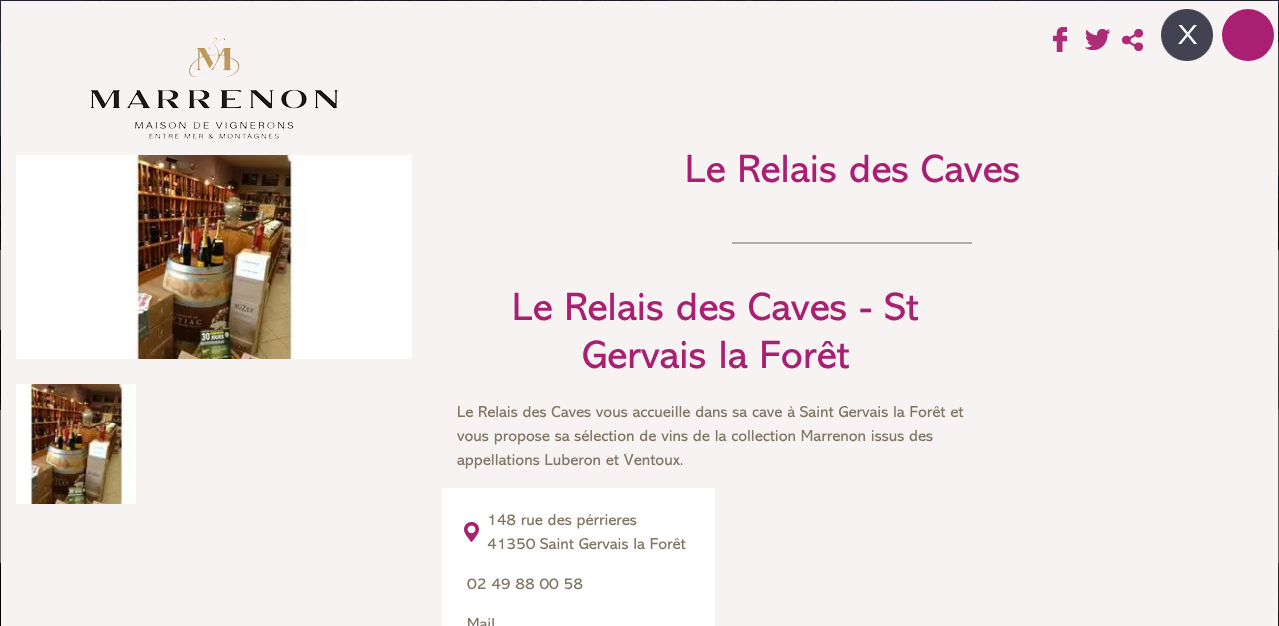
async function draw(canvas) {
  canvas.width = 1279;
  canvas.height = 626;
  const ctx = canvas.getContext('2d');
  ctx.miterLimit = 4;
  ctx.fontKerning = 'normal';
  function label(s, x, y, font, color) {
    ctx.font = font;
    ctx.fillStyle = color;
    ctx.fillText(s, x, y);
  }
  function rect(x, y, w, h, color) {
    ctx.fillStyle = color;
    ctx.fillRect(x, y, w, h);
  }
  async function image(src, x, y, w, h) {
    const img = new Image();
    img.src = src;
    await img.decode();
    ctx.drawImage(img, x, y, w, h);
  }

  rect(0, 0, 1279, 626, '#808080');
  await image('assets/img1.png', 0, 0, 1279, 250);
  rect(0, 0, 1279, 43, '#212129cc');
  await image('assets/img10.png', 0, 330, 1279, 296);
  rect(0, 410, 1279, 153, '#808080');
  ctx.beginPath();
  ctx.roundRect(0.5, 0.5, 1278, 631, 4.5);
  ctx.strokeStyle = '#00000033';
  ctx.stroke();
  rect(1, 1, 1277, 625, '#f7f3f3');
  await image('assets/img2.png', 1161, 9, 52, 52);
  await image('assets/img3.png', 91, 37, 247, 102);
  await image('assets/img4.png', 16, 155, 396, 204);
  await image('assets/img5.png', 16, 384, 120, 120);
  await image('assets/img6.png', 1053, 27, 14, 25);
  await image('assets/img7.png', 1085, 29, 25, 21);
  await image('assets/img8.png', 1122, 29, 21, 22);
  ctx.fillStyle = '#a91f71';
  ctx.beginPath();
  ctx.arc(1248, 35, 26, 0, 2 * Math.PI);
  ctx.fill();
  rect(732, 242, 240, 2, '#b4afa5');
  label('Le Relais des Caves', 685, 182, '40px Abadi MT', '#a91f71');
  label('Le Relais des Caves - St', 512, 320, '40px Abadi MT', '#a91f71');
  label('Gervais la Forêt', 582, 368, '40px Abadi MT', '#a91f71');
  label('Le Relais des Caves vous accueille dans sa cave à Saint Gervais la Forêt et', 457, 417, '16px Abadi MT', '#7f7562');
  label('vous propose sa sélection de vins de la collection Marrenon issus des', 457, 441, '16px Abadi MT', '#7f7562');
  label('appellations Luberon et Ventoux.', 457, 465, '16px Abadi MT', '#7f7562');
  rect(442, 488, 273, 138, '#fff');
  await image('assets/img9.png', 464, 522, 15, 20);
  label('148 rue des pérrieres', 487, 525, '16px Abadi MT', '#7f7562');
  label('41350 Saint Gervais la Forêt', 487, 549, '16px Abadi MT', '#7f7562');
  label('02 49 88 00 58', 467, 589, '16px Abadi MT', '#7f7562');
  label('Mail', 467, 629, '16px Abadi MT', '#7f7562');
}

draw(document.querySelector('canvas'));
